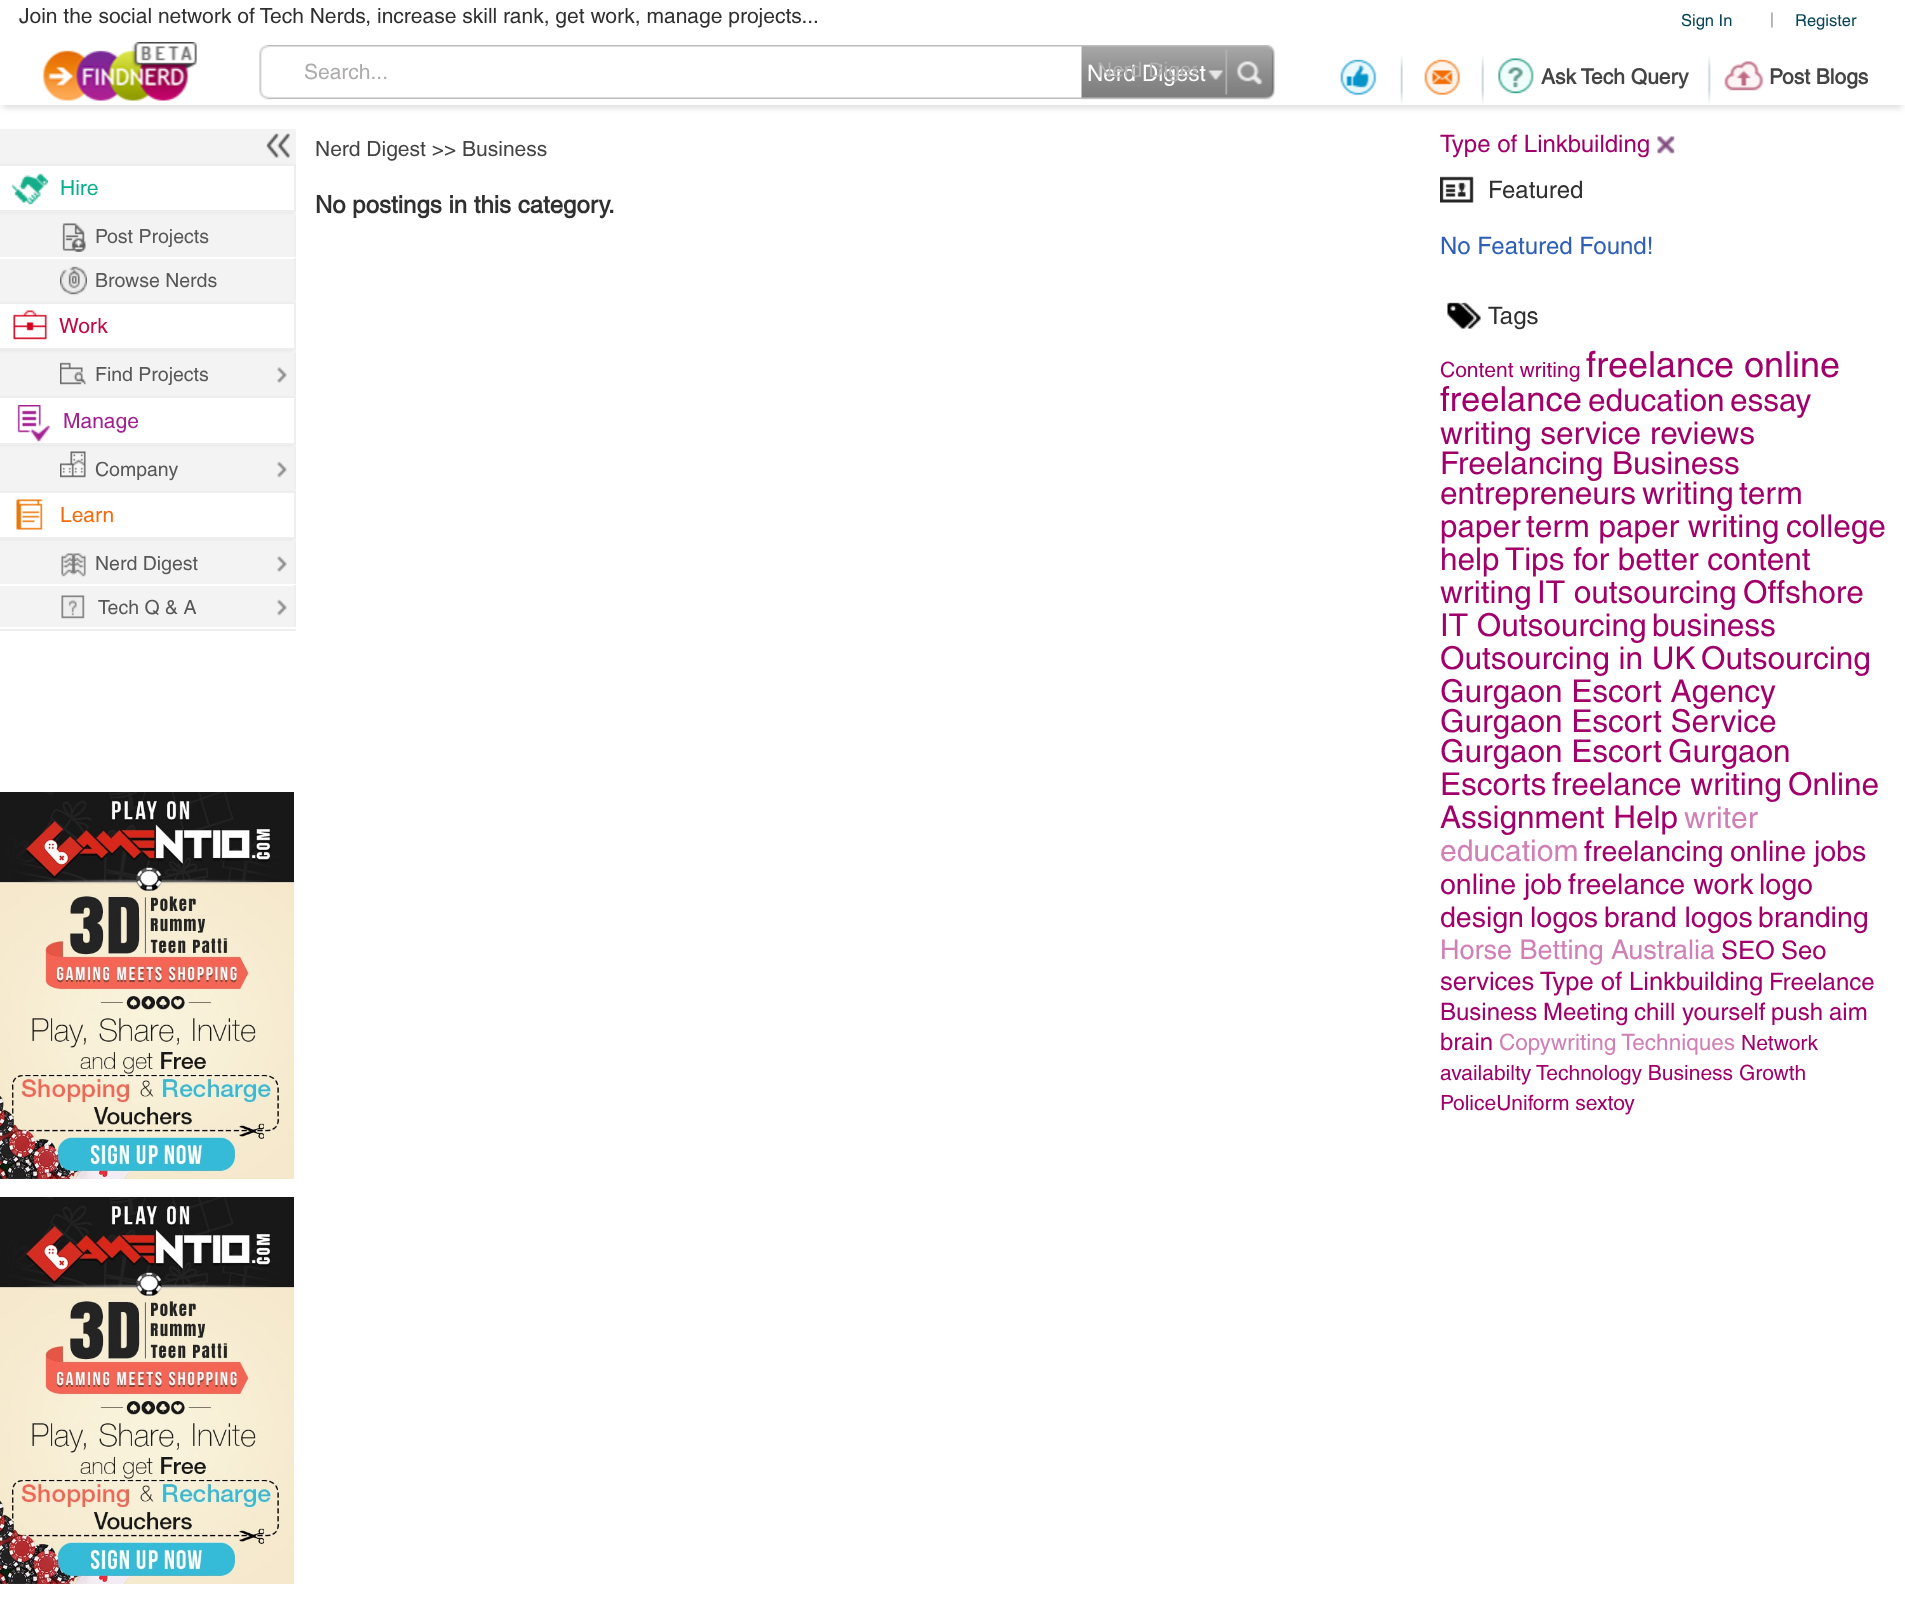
async function draw(canvas) {
  canvas.width = 1905;
  canvas.height = 1602;
  const ctx = canvas.getContext('2d');
  ctx.miterLimit = 4;
  ctx.fontKerning = 'normal';
  function label(s, x, y, font, color) {
    ctx.font = font;
    ctx.fillStyle = color;
    ctx.fillText(s, x, y);
  }
  function rect(x, y, w, h, color) {
    ctx.fillStyle = color;
    ctx.fillRect(x, y, w, h);
  }
  async function image(src, x, y, w, h) {
    const img = new Image();
    img.src = src;
    await img.decode();
    ctx.drawImage(img, x, y, w, h);
  }

  rect(0, 0, 1905, 1602, '#fff');
  ctx.save();
  ctx.beginPath();
  ctx.rect(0, 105, 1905, 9);
  ctx.clip();
  ctx.fillStyle = '#ddd';
  ctx.filter = 'blur(3px)';
  ctx.beginPath();
  ctx.rect(3, 9, 1899, 99);
  ctx.fill();
  ctx.filter = 'none';
  ctx.restore();
  label('Join the social network of Tech Nerds, increase skill rank, get work, manage projects...', 19, 23, '21px Helvetica', '#303030');
  label('Sign In', 1681, 26, '16.5px Helvetica', '#074456');
  label('|', 1770, 24, '15px Helvetica', '#828282');
  label('Register', 1795, 26, '16.5px Helvetica', '#074456');
  await image('assets/img1.png', 42, 42, 155, 59);
  await image('assets/img3.png', 268, 45, 998, 54);
  await image('assets/img2.png', 259, 45, 13, 55);
  label('Search...', 304, 79, '21px Helvetica', '#adabab');
  await image('assets/img4.png', 1081, 45, 194, 55);
  label('Nerd Digest', 1087, 81, '22.5px Helvetica', '#fff');
  ctx.save();
  ctx.beginPath();
  ctx.rect(1098, 56, 99, 27);
  ctx.clip();
  label('Nerd Diges', 1097, 77, '21px Liberation Sans', '#b1b1b1');
  ctx.restore();
  await image('assets/img5.png', 1208, 70, 15, 10);
  await image('assets/img6.png', 1236, 61, 27, 24);
  await image('assets/img7.png', 1340, 59, 37, 36);
  await image('assets/img8.png', 1400, 55, 3, 49);
  await image('assets/img9.png', 1424, 59, 36, 36);
  await image('assets/img8.png', 1481, 55, 3, 49);
  await image('assets/img10.png', 1498, 58, 36, 36);
  label('Ask Tech Query', 1541, 84, 'bold 21px Helvetica', '#444');
  await image('assets/img11.png', 1707, 56, 4, 48);
  await image('assets/img12.png', 1724, 61, 40, 30);
  label('Post Blogs', 1769, 84, 'bold 21px Helvetica', '#444');
  rect(0, 129, 296, 498, '#f3f3f3');
  rect(0, 629, 296, 2, '#eee');
  await image('assets/img13.png', 266, 133, 24, 25);
  ctx.fillStyle = '#dddddd80';
  ctx.filter = 'blur(1px)';
  ctx.beginPath();
  ctx.rect(-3, 165, 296, 48);
  ctx.fill();
  ctx.filter = 'none';
  rect(0, 166, 294, 44, '#fff');
  rect(0, 164, 296, 2, '#eee');
  rect(294, 164, 2, 48, '#eee');
  rect(0, 210, 296, 2, '#eee');
  await image('assets/img14.png', 11, 173, 37, 32);
  label('Hire', 60, 195, '21px Helvetica', '#0ab08e');
  rect(294, 215, 2, 43, '#eee');
  rect(0, 257, 296, 2, '#fff');
  await image('assets/img15.png', 62, 223, 24, 29);
  label('Post Projects', 95, 243, '19.5px Helvetica', '#595858');
  rect(294, 258, 2, 44, '#eee');
  rect(294, 300, 2, 2, '#f3f3f3');
  await image('assets/img16.png', 60, 266, 27, 29);
  label('Browse Nerds', 95, 287, '19.5px Helvetica', '#595858');
  ctx.fillStyle = '#dddddd80';
  ctx.filter = 'blur(1px)';
  ctx.beginPath();
  ctx.rect(-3, 303, 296, 48);
  ctx.fill();
  ctx.filter = 'none';
  rect(0, 304, 294, 44, '#fff');
  rect(0, 302, 296, 2, '#eee');
  rect(294, 302, 2, 48, '#eee');
  rect(0, 348, 296, 2, '#eee');
  await image('assets/img17.png', 13, 310, 34, 30);
  label('Work', 59, 333, '21px Helvetica', '#c40842');
  rect(294, 353, 2, 43, '#eee');
  rect(294, 395, 2, 1, '#f3f3f3');
  await image('assets/img18.png', 60, 362, 26, 23);
  label('Find Projects', 95, 381, '19.5px Helvetica', '#595858');
  await image('assets/img19.png', 277, 367, 10, 16);
  ctx.fillStyle = '#dddddd80';
  ctx.filter = 'blur(1px)';
  ctx.beginPath();
  ctx.rect(-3, 398, 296, 48);
  ctx.fill();
  ctx.filter = 'none';
  rect(0, 398, 294, 45, '#fff');
  rect(0, 396, 296, 2, '#eee');
  rect(294, 396, 2, 48, '#eee');
  rect(0, 443, 296, 2, '#eee');
  await image('assets/img20.png', 17, 405, 33, 37);
  label('Manage', 63, 428, '21px Helvetica', '#a12090');
  rect(294, 447, 2, 44, '#eee');
  rect(294, 489, 2, 2, '#f3f3f3');
  await image('assets/img21.png', 60, 451, 26, 27);
  label('Company', 95, 476, '19.5px Helvetica', '#595858');
  await image('assets/img22.png', 277, 461, 10, 17);
  ctx.fillStyle = '#dddddd80';
  ctx.filter = 'blur(1px)';
  ctx.beginPath();
  ctx.rect(-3, 492, 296, 48);
  ctx.fill();
  ctx.filter = 'none';
  rect(0, 493, 294, 44, '#fff');
  rect(0, 491, 296, 2, '#eee');
  rect(294, 491, 2, 48, '#eee');
  rect(0, 537, 296, 2, '#eee');
  await image('assets/img23.png', 16, 498, 27, 32);
  label('Learn', 60, 522, '21px Helvetica', '#f36b0f');
  rect(294, 542, 2, 43, '#eee');
  rect(0, 584, 296, 2, '#fff');
  await image('assets/img24.png', 61, 553, 25, 24);
  label('Nerd Digest', 95, 570, '19.5px Helvetica', '#595858');
  await image('assets/img19.png', 277, 556, 10, 16);
  rect(294, 585, 2, 44, '#eee');
  rect(294, 627, 2, 2, '#fff');
  await image('assets/img25.png', 61, 595, 24, 24);
  label('Tech Q & A', 98, 614, '19.5px Helvetica', '#595858');
  await image('assets/img22.png', 277, 599, 10, 17);
  await image('assets/img26.png', 0, 792, 294, 387);
  await image('assets/img27.png', 0, 1197, 294, 387);
  label('Nerd Digest >> Business', 315, 156, '21px Helvetica', '#444');
  label('Type of Linkbuilding', 1440, 152, '24px Helvetica', '#a1006b');
  await image('assets/img28.png', 1657, 136, 18, 18);
  await image('assets/img29.png', 1440, 176, 34, 27);
  label('Featured', 1488, 198, '24px Helvetica', '#303030');
  label('No Featured Found!', 1440, 254, '24px Helvetica', '#2f5eb5');
  await image('assets/img30.png', 1447, 302, 34, 27);
  label('Tags', 1488, 324, '24px Helvetica', '#303030');
  label('Content writing', 1440, 377, '21px Helvetica', '#a1006b');
  label('freelance online', 1586, 377, '36px Helvetica', '#a1006b');
  label('freelance', 1440, 411, '34.5px Helvetica', '#a1006b');
  label('education', 1588, 411, '31.5px Helvetica', '#a1006b');
  label('essay', 1730, 411, '31.5px Helvetica', '#a1006b');
  label('writing service reviews', 1440, 444, '31.5px Helvetica', '#a1006b');
  label('Freelancing Business', 1440, 474, '31.5px Helvetica', '#a1006b');
  label('entrepreneurs', 1440, 504, '31.5px Helvetica', '#a1006b');
  label('writing', 1642, 504, '31.5px Helvetica', '#a1006b');
  label('term', 1739, 504, '31.5px Helvetica', '#a1006b');
  label('paper', 1440, 537, '31.5px Helvetica', '#a1006b');
  label('term paper writing', 1526, 537, '31.5px Helvetica', '#a1006b');
  label('college', 1786, 537, '31.5px Helvetica', '#a1006b');
  label('help', 1440, 570, '31.5px Helvetica', '#a1006b');
  label('Tips for better content', 1505, 570, '31.5px Helvetica', '#a1006b');
  label('writing', 1440, 603, '31.5px Helvetica', '#a1006b');
  label('IT outsourcing', 1537, 603, '31.5px Helvetica', '#a1006b');
  label('Offshore', 1743, 603, '31.5px Helvetica', '#a1006b');
  label('IT Outsourcing', 1440, 636, '31.5px Helvetica', '#a1006b');
  label('business', 1652, 636, '31.5px Helvetica', '#a1006b');
  label('Outsourcing in UK', 1440, 669, '31.5px Helvetica', '#a1006b');
  label('Outsourcing', 1701, 669, '31.5px Helvetica', '#a1006b');
  label('Gurgaon Escort Agency', 1440, 702, '31.5px Helvetica', '#a1006b');
  label('Gurgaon Escort Service', 1440, 732, '31.5px Helvetica', '#a1006b');
  label('Gurgaon Escort', 1440, 762, '31.5px Helvetica', '#a1006b');
  label('Gurgaon', 1668, 762, '31.5px Helvetica', '#a1006b');
  label('Escorts', 1440, 795, '31.5px Helvetica', '#a1006b');
  label('freelance writing', 1552, 795, '31.5px Helvetica', '#a1006b');
  label('Online', 1788, 795, '31.5px Helvetica', '#a1006b');
  label('Assignment Help', 1440, 828, '31.5px Helvetica', '#a1006b');
  label('writer', 1684, 828, '30px Helvetica', '#d080b5');
  label('educatiom', 1440, 861, '30px Helvetica', '#d080b5');
  label('freelancing', 1584, 861, '28.5px Helvetica', '#a1006b');
  label('online jobs', 1730, 861, '28.5px Helvetica', '#a1006b');
  label('online job', 1440, 894, '28.5px Helvetica', '#a1006b');
  label('freelance work', 1568, 894, '28.5px Helvetica', '#a1006b');
  label('logo', 1759, 894, '28.5px Helvetica', '#a1006b');
  label('design', 1440, 927, '28.5px Helvetica', '#a1006b');
  label('logos', 1530, 927, '28.5px Helvetica', '#a1006b');
  label('brand logos', 1604, 927, '28.5px Helvetica', '#a1006b');
  label('branding', 1758, 927, '28.5px Helvetica', '#a1006b');
  label('Horse Betting Australia', 1440, 959, '27px Helvetica', '#d080b5');
  label('SEO', 1721, 959, '25.5px Helvetica', '#a1006b');
  label('Seo', 1781, 959, '25.5px Helvetica', '#a1006b');
  label('services', 1440, 990, '25.5px Helvetica', '#a1006b');
  label('Type of Linkbuilding', 1540, 990, '25.5px Helvetica', '#a1006b');
  label('Freelance', 1769, 990, '24px Helvetica', '#a1006b');
  label('Business', 1440, 1020, '24px Helvetica', '#a1006b');
  label('Meeting', 1543, 1020, '24px Helvetica', '#a1006b');
  label('chill', 1634, 1020, '24px Helvetica', '#a1006b');
  label('yourself', 1682, 1020, '24px Helvetica', '#a1006b');
  label('push', 1771, 1020, '24px Helvetica', '#a1006b');
  label('aim', 1829, 1020, '24px Helvetica', '#a1006b');
  label('brain', 1440, 1050, '24px Helvetica', '#a1006b');
  label('Copywriting Techniques', 1499, 1050, '22.5px Helvetica', '#d080b5');
  label('Network', 1741, 1050, '21px Helvetica', '#a1006b');
  label('availabilty', 1440, 1080, '21px Helvetica', '#a1006b');
  label('Technology Business Growth', 1536, 1080, '21px Helvetica', '#a1006b');
  label('PoliceUniform sextoy', 1440, 1110, '21px Helvetica', '#a1006b');
  label('No postings in this category.', 315, 213, 'bold 24px Helvetica', '#303030');
}

draw(document.querySelector('canvas'));
